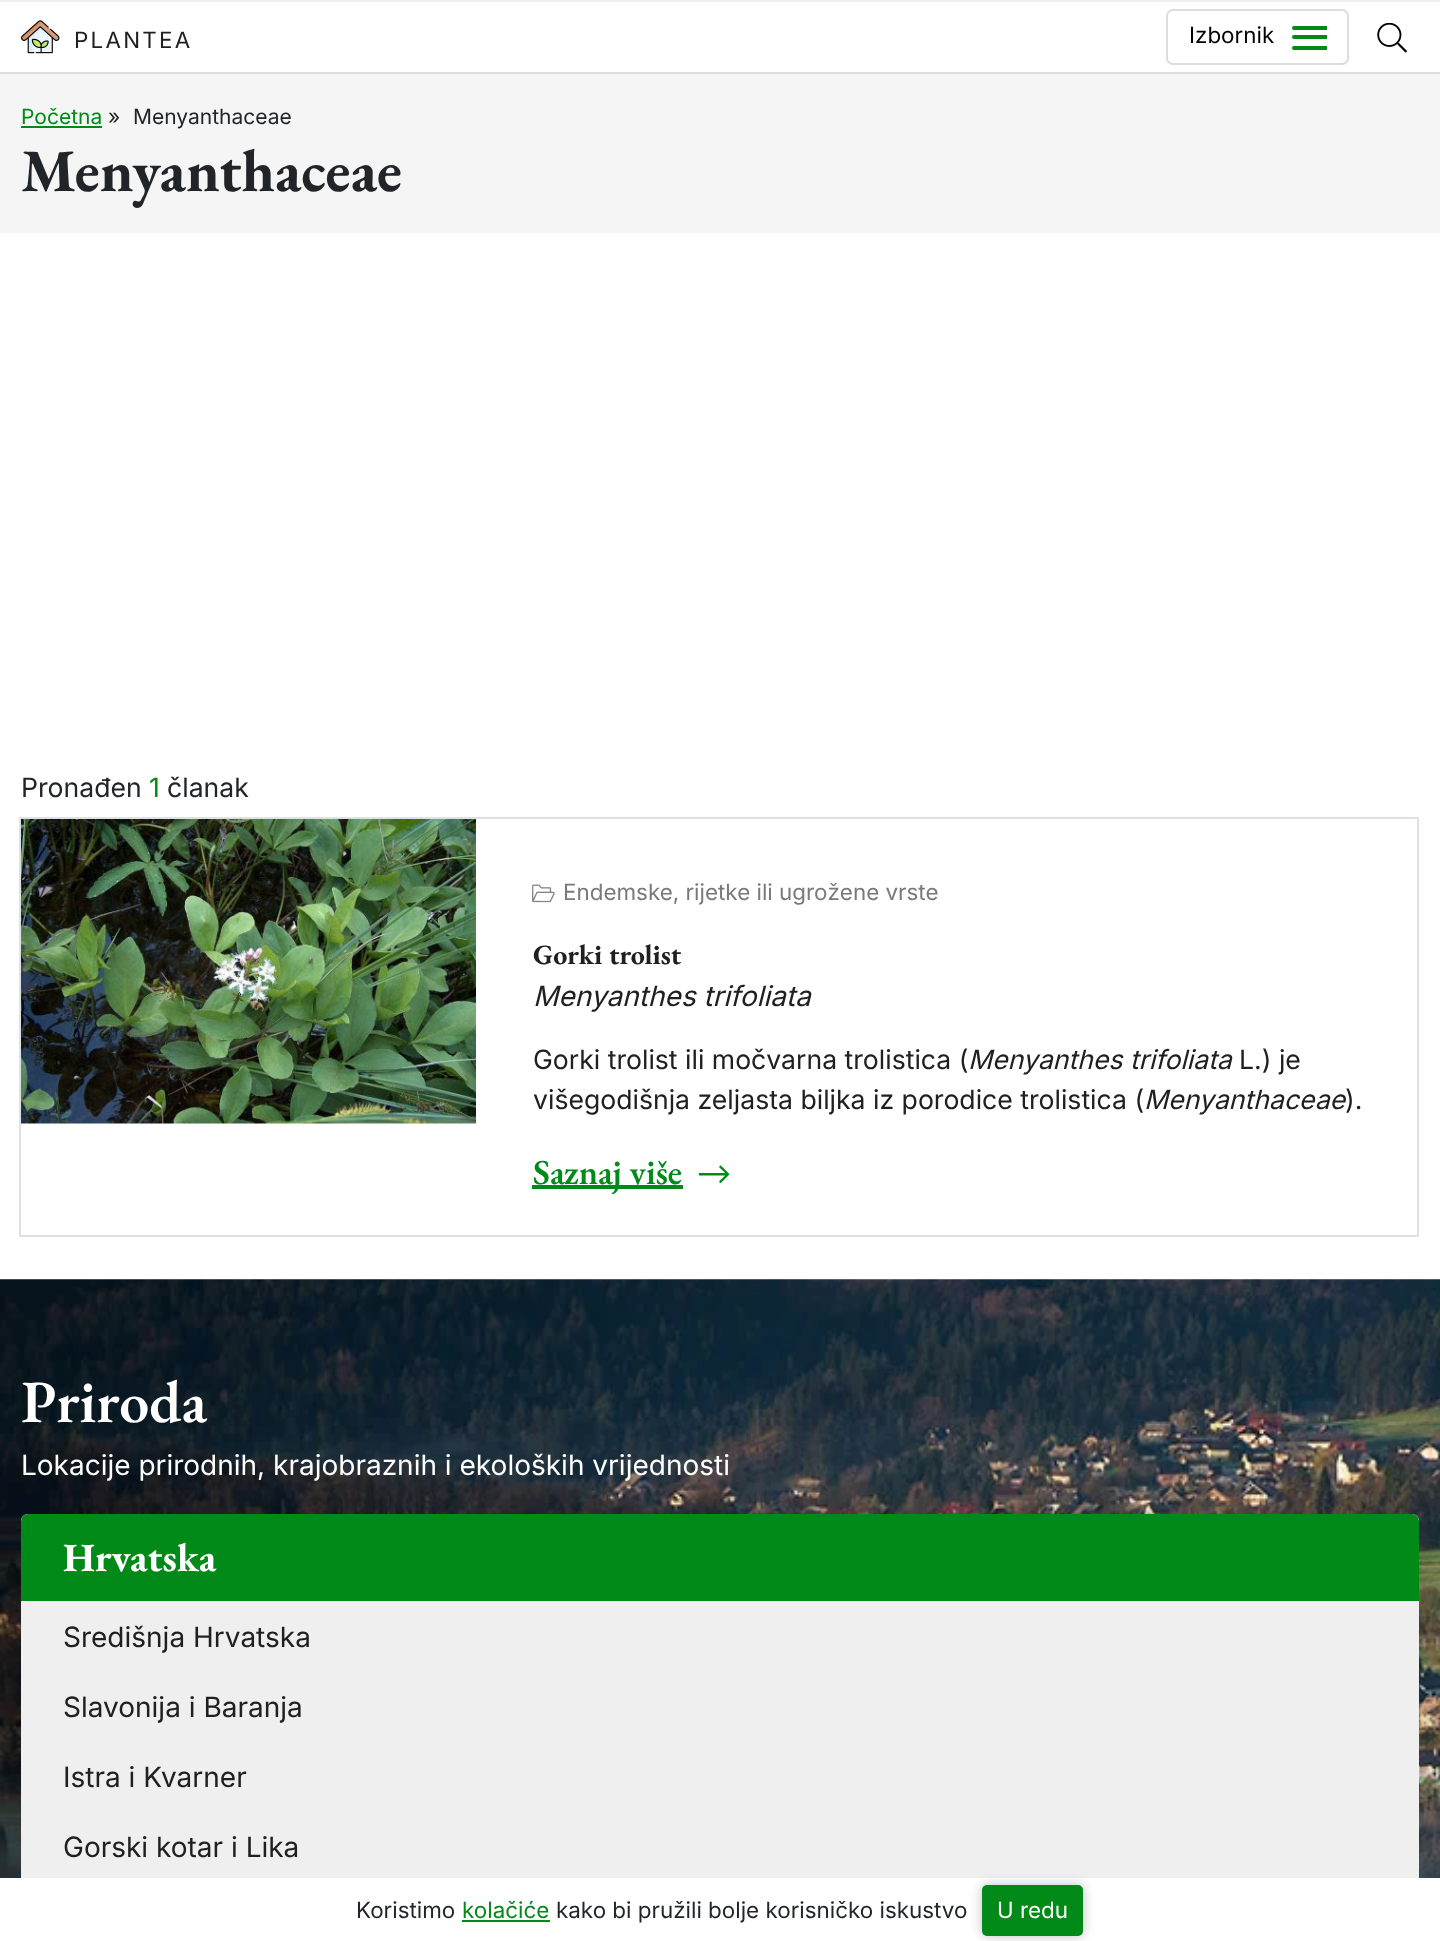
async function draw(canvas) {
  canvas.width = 1440;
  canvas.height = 1941;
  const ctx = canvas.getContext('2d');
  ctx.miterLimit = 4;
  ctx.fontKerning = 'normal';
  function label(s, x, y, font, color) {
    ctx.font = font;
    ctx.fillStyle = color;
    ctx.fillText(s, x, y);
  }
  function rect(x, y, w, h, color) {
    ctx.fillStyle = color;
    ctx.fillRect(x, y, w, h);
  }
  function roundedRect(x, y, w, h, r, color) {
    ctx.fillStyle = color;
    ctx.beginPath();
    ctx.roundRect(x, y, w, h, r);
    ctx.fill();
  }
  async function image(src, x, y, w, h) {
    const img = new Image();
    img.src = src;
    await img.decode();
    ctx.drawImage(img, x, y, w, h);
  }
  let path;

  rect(0, 0, 1440, 1941, '#fff');
  rect(0, 0, 1440, 2, '#eee');
  rect(0, 72, 1440, 2, '#ddd');
  await image('assets/img1.png', 21, 20, 39, 34);
  ctx.letterSpacing = '2.25px';
  label('PLANTEA', 74, 48, '22.4px Inter', '#202020');
  ctx.beginPath();
  ctx.roundRect(1167, 10, 181, 54, 6);
  ctx.strokeStyle = '#ddd';
  ctx.lineWidth = 2;
  ctx.stroke();
  ctx.letterSpacing = '0px';
  label('Izbornik', 1189, 43, '22.4px Inter', '#000');
  ctx.fillStyle = '#018a18';
  ctx.beginPath();
  ctx.roundRect(1292, 26, 35, 4, [2, 0, 0, 2]);
  ctx.fill();
  ctx.beginPath();
  ctx.roundRect(1292, 35, 35, 4, [2, 0, 0, 2]);
  ctx.fill();
  ctx.beginPath();
  ctx.roundRect(1292, 46, 35, 4, [2, 0, 0, 2]);
  ctx.fill();
  await image('assets/img2.png', 1377, 23, 30, 30);
  rect(0, 74, 1440, 159, '#f5f5f5');
  label('Početna', 21, 124, '21px Inter', '#018a18');
  rect(21, 126, 81, 2, '#018a18');
  label('»', 108, 124, '21px Inter', '#212529');
  label('Menyanthaceae', 133, 124, '21px Inter', '#212529');
  label('Menyanthaceae', 21, 191, 'bold 60px EB Garamond', '#212529');
  label('Pronađen', 21, 797, '26.6px Inter', '#212529');
  label('1', 149, 797, '26.6px Inter', '#018a18');
  label('članak', 167, 797, '26.6px Inter', '#212529');
  ctx.strokeStyle = '#dee2e6';
  ctx.strokeRect(20, 818, 1398, 418);
  await image('assets/img3.png', 21, 819, 455, 305);
  await image('assets/img4.png', 532, 884, 23, 19);
  label('Endemske, rijetke ili ugrožene vrste', 563, 900, '22.4px Inter', '#797979');
  label('Gorki trolist', 533, 964, 'bold 28px EB Garamond', '#202020');
  label('Menyanthes trifoliata', 533, 1006, 'italic 28px Inter', '#202020');
  label('Gorki trolist ili močvarna trolistica (', 533, 1069, '26.6px Inter', '#202020');
  label('Menyanthes trifoliata', 968, 1069, 'italic 26.6px Inter', '#202020');
  label('L.) je', 1239, 1069, '26.6px Inter', '#202020');
  label('višegodišnja zeljasta biljka iz porodice trolistica (', 533, 1109, '26.6px Inter', '#202020');
  label('Menyanthaceae', 1144, 1109, 'italic 26.6px Inter', '#202020');
  label(').', 1345, 1109, '26.6px Inter', '#202020');
  rect(532, 1185, 151, 4, '#018a18');
  label('Saznaj više', 533, 1184, '600 35px EB Garamond', '#018a18');
  await image('assets/img5.png', 698, 1165, 32, 18);
  await image('assets/img6.png', 0, 1279, 1440, 599);
  label('Priroda', 21, 1422, '600 60px EB Garamond', '#fff');
  label('Lokacije prirodnih, krajobraznih i ekoloških vrijednosti', 21, 1475, '28px Inter', '#fff');
  ctx.fillStyle = '#0000002e';
  ctx.filter = 'blur(42px)';
  ctx.beginPath();
  ctx.roundRect(21, 1542, 1398, 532, 7);
  ctx.fill();
  ctx.filter = 'none';
  ctx.fillStyle = '#efefef';
  path = new Path2D('M28 1514H1412C1416 1514 1419 1517 1419 1521V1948H21V1521C21 1517 24 1514 28 1514Z');
  ctx.fill(path);
  ctx.fillStyle = '#018a18';
  ctx.beginPath();
  ctx.roundRect(21, 1514, 1398, 87, [7, 7, 0, 0]);
  ctx.fill();
  label('Hrvatska', 63, 1571, 'bold 40px EB Garamond', '#fff');
  label('Središnja Hrvatska', 63, 1647, '28px Inter', '#202020');
  label('Slavonija i Baranja', 63, 1717, '28px Inter', '#202020');
  label('Istra i Kvarner', 63, 1787, '28px Inter', '#202020');
  label('Gorski kotar i Lika', 63, 1857, '28px Inter', '#202020');
  rect(0, 1878, 1440, 63, '#fff');
  label('Koristimo', 356, 1918, '22.4px Inter', '#212529');
  label('kolačiće', 462, 1918, '22.4px Inter', '#018a18');
  rect(462, 1920, 88, 2, '#018a18');
  label('kako bi pružili bolje korisničko iskustvo', 556, 1918, '22.4px Inter', '#212529');
  ctx.fillStyle = '#00000040';
  ctx.filter = 'blur(6px)';
  ctx.beginPath();
  ctx.roundRect(982, 1885, 101, 51, 5);
  ctx.fill();
  ctx.filter = 'none';
  roundedRect(982, 1885, 101, 51, 5, '#018a18');
  label('U redu', 997, 1918, '22.4px Inter', '#fff');
}

draw(document.querySelector('canvas'));
